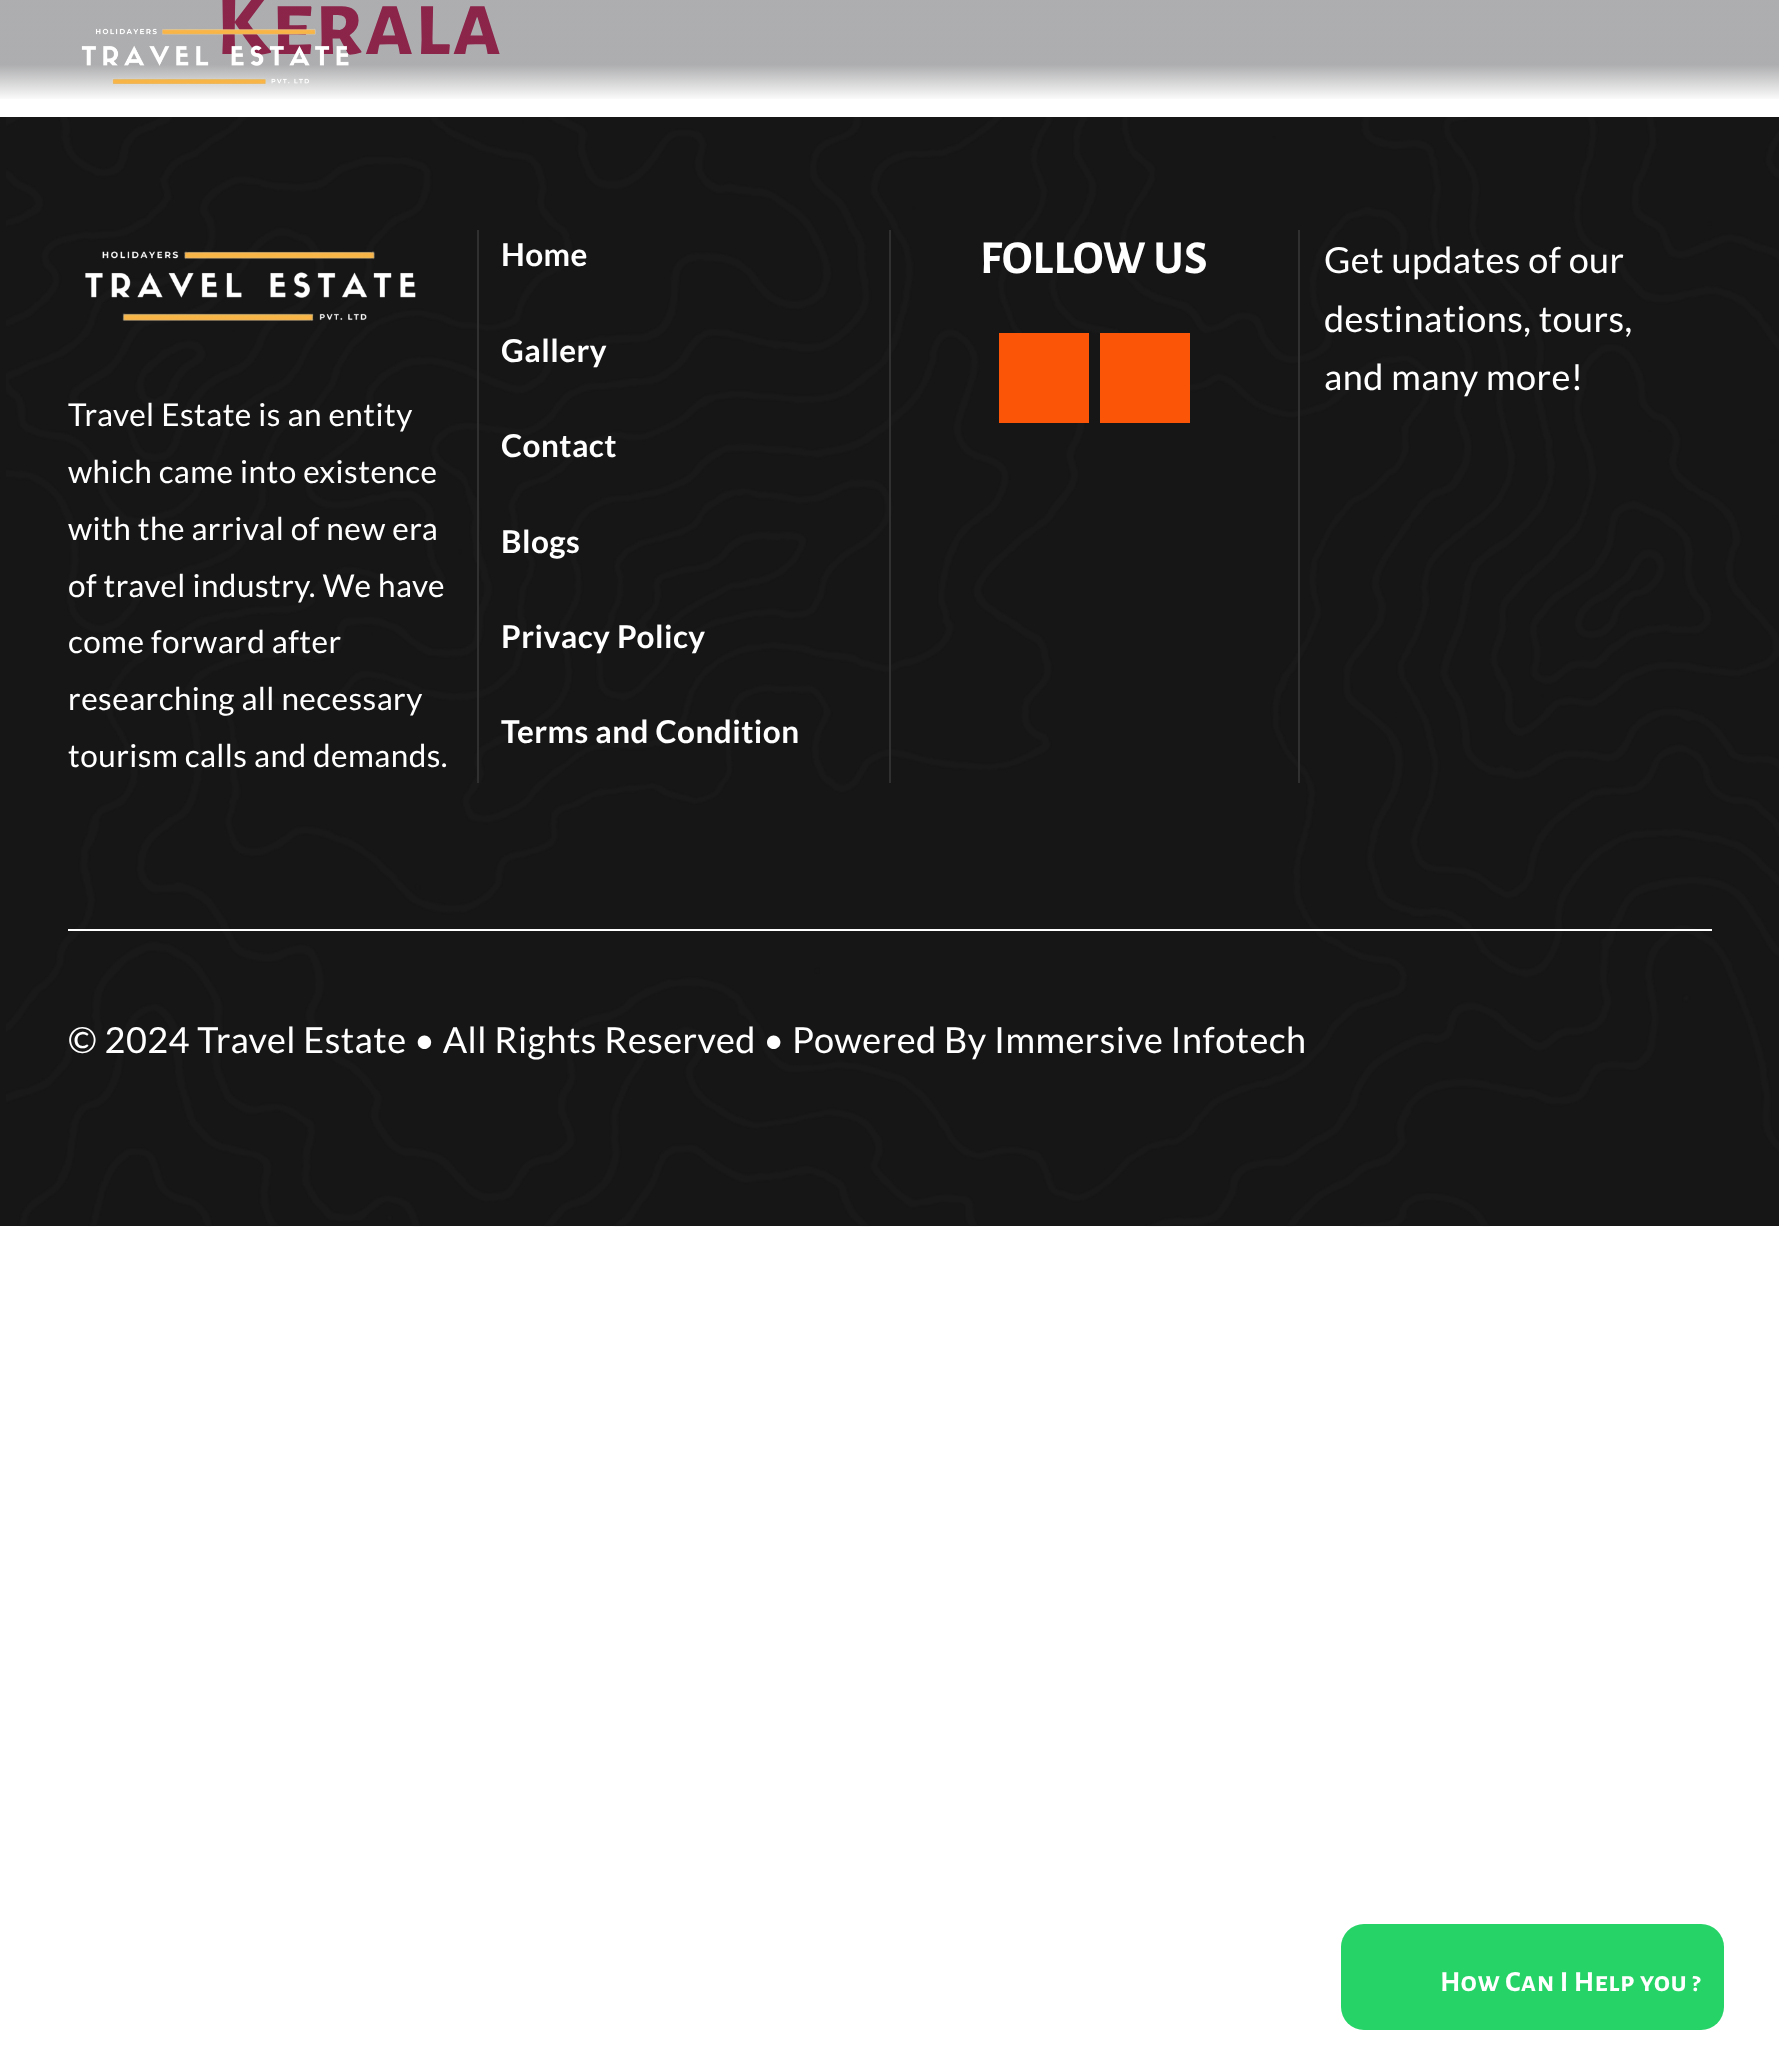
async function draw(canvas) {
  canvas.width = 1779;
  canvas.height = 2050;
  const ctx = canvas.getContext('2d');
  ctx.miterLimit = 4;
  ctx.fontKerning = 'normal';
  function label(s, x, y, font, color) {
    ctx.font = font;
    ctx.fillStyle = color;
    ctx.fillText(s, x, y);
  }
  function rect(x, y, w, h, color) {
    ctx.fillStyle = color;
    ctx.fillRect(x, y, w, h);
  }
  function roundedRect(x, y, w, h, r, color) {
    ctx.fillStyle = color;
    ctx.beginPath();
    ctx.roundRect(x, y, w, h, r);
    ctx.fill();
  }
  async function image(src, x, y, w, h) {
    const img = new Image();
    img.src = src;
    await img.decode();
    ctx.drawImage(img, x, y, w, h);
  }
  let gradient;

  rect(0, 0, 1779, 2050, '#fff');
  ctx.letterSpacing = '0.45px';
  label('Kerala', 215, 54, 'bold 94.5px Alegreya Sans SC', '#c36');
  gradient = ctx.createLinearGradient(890, 0, 890, 101);
  gradient.addColorStop(0.64, '#07080d54');
  gradient.addColorStop(1, '#07080d00');
  ctx.fillStyle = gradient;
  ctx.fillRect(0, 0, 1779, 99);
  await image('assets/img1.png', 81, 28, 268, 57);
  rect(0, 117, 1779, 1109, '#161616');
  await image('assets/img2.png', 6, 117, 1773, 1110);
  rect(889, 230, 2, 553, '#303030');
  label('Home', 501, 266, 'bold 31.5px Lato', '#fff');
  label('Gallery', 501, 362, 'bold 31.5px Lato', '#fff');
  label('Contact', 501, 457, 'bold 31.5px Lato', '#fff');
  label('Blogs', 501, 553, 'bold 31.5px Lato', '#fff');
  label('Privacy Policy', 501, 648, 'bold 31.5px Lato', '#fff');
  label('Terms and Condition', 501, 743, 'bold 31.5px Lato', '#fff');
  rect(1298, 230, 2, 553, '#303030');
  label('FOLLOW US', 980, 273, 'bold 47.25px Alegreya Sans SC', '#fff');
  rect(999, 333, 90, 90, '#fb5607');
  rect(1100, 333, 90, 90, '#fb5607');
  label('Get updates of our', 1324, 273, '36px Lato', '#fff');
  label('destinations, tours,', 1324, 332, '36px Lato', '#fff');
  label('and many more!', 1324, 390, '36px Lato', '#fff');
  rect(477, 230, 2, 553, '#303030');
  await image('assets/img3.png', 85, 251, 331, 70);
  label('Travel Estate is an entity', 68, 426, '31.5px Lato', '#fff');
  label('which came into existence', 68, 483, '31.5px Lato', '#fff');
  label('with the arrival of new era', 68, 540, '31.5px Lato', '#fff');
  label('of travel industry. We have', 68, 597, '31.5px Lato', '#fff');
  label('come forward after', 68, 653, '31.5px Lato', '#fff');
  label('researching all necessary', 68, 710, '31.5px Lato', '#fff');
  label('tourism calls and demands.', 68, 767, '31.5px Lato', '#fff');
  rect(68, 929, 1644, 2, '#fff');
  label('© 2024 Travel Estate • All Rights Reserved • Powered By Immersive Infotech', 68, 1053, '36px Lato', '#fff');
  roundedRect(1341, 1924, 383, 106, 23, '#26d367');
  label('How Can I Help you ?', 1440, 1991, 'bold 29.25px Alegreya Sans SC', '#fff');
}

draw(document.querySelector('canvas'));
